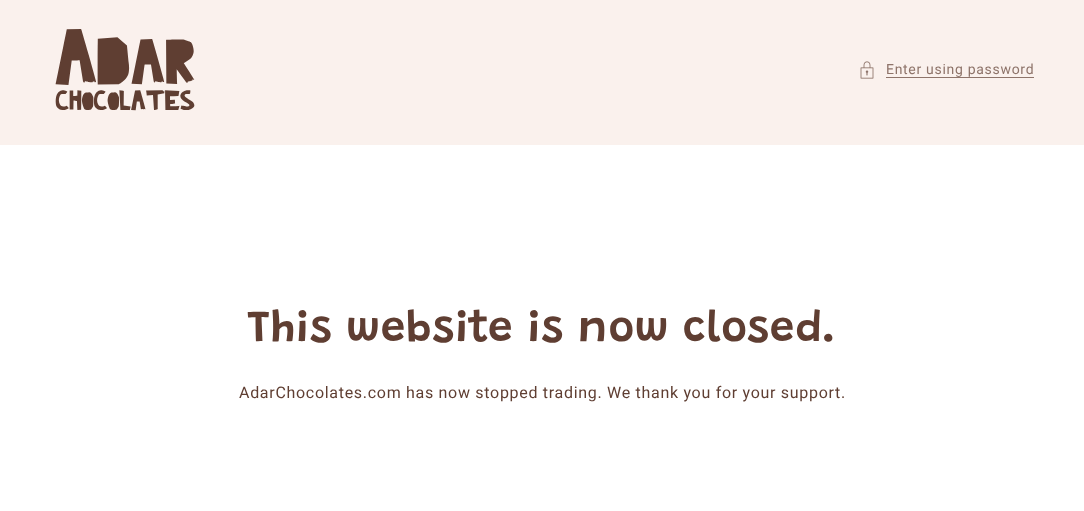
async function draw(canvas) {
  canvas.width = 1084;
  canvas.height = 511;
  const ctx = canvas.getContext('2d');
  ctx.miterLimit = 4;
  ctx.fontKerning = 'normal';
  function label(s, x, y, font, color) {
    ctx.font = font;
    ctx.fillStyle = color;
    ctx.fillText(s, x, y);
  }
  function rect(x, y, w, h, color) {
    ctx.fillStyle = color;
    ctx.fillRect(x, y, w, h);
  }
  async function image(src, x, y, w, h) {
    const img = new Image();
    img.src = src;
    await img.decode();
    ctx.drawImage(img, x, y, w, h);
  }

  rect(0, 0, 1084, 511, '#fff');
  rect(0, 0, 1084, 145, '#faf1ed');
  await image('assets/img1.png', 55, 29, 140, 82);
  await image('assets/img2.png', 860, 61, 14, 18);
  ctx.letterSpacing = '0.7px';
  label('Enter using password', 886, 74, '14px Roboto', '#8e746a');
  rect(886, 77, 148, 1, '#8e746a');
  ctx.letterSpacing = '0.65px';
  label('This website is now closed.', 247, 341, '600 44px Grandstander', '#5f3e32');
  ctx.letterSpacing = '0.7px';
  label('AdarChocolates.com has now stopped trading. We thank you for your support.', 239, 398, '16px Roboto', '#5f3e32');
}

draw(document.querySelector('canvas'));
